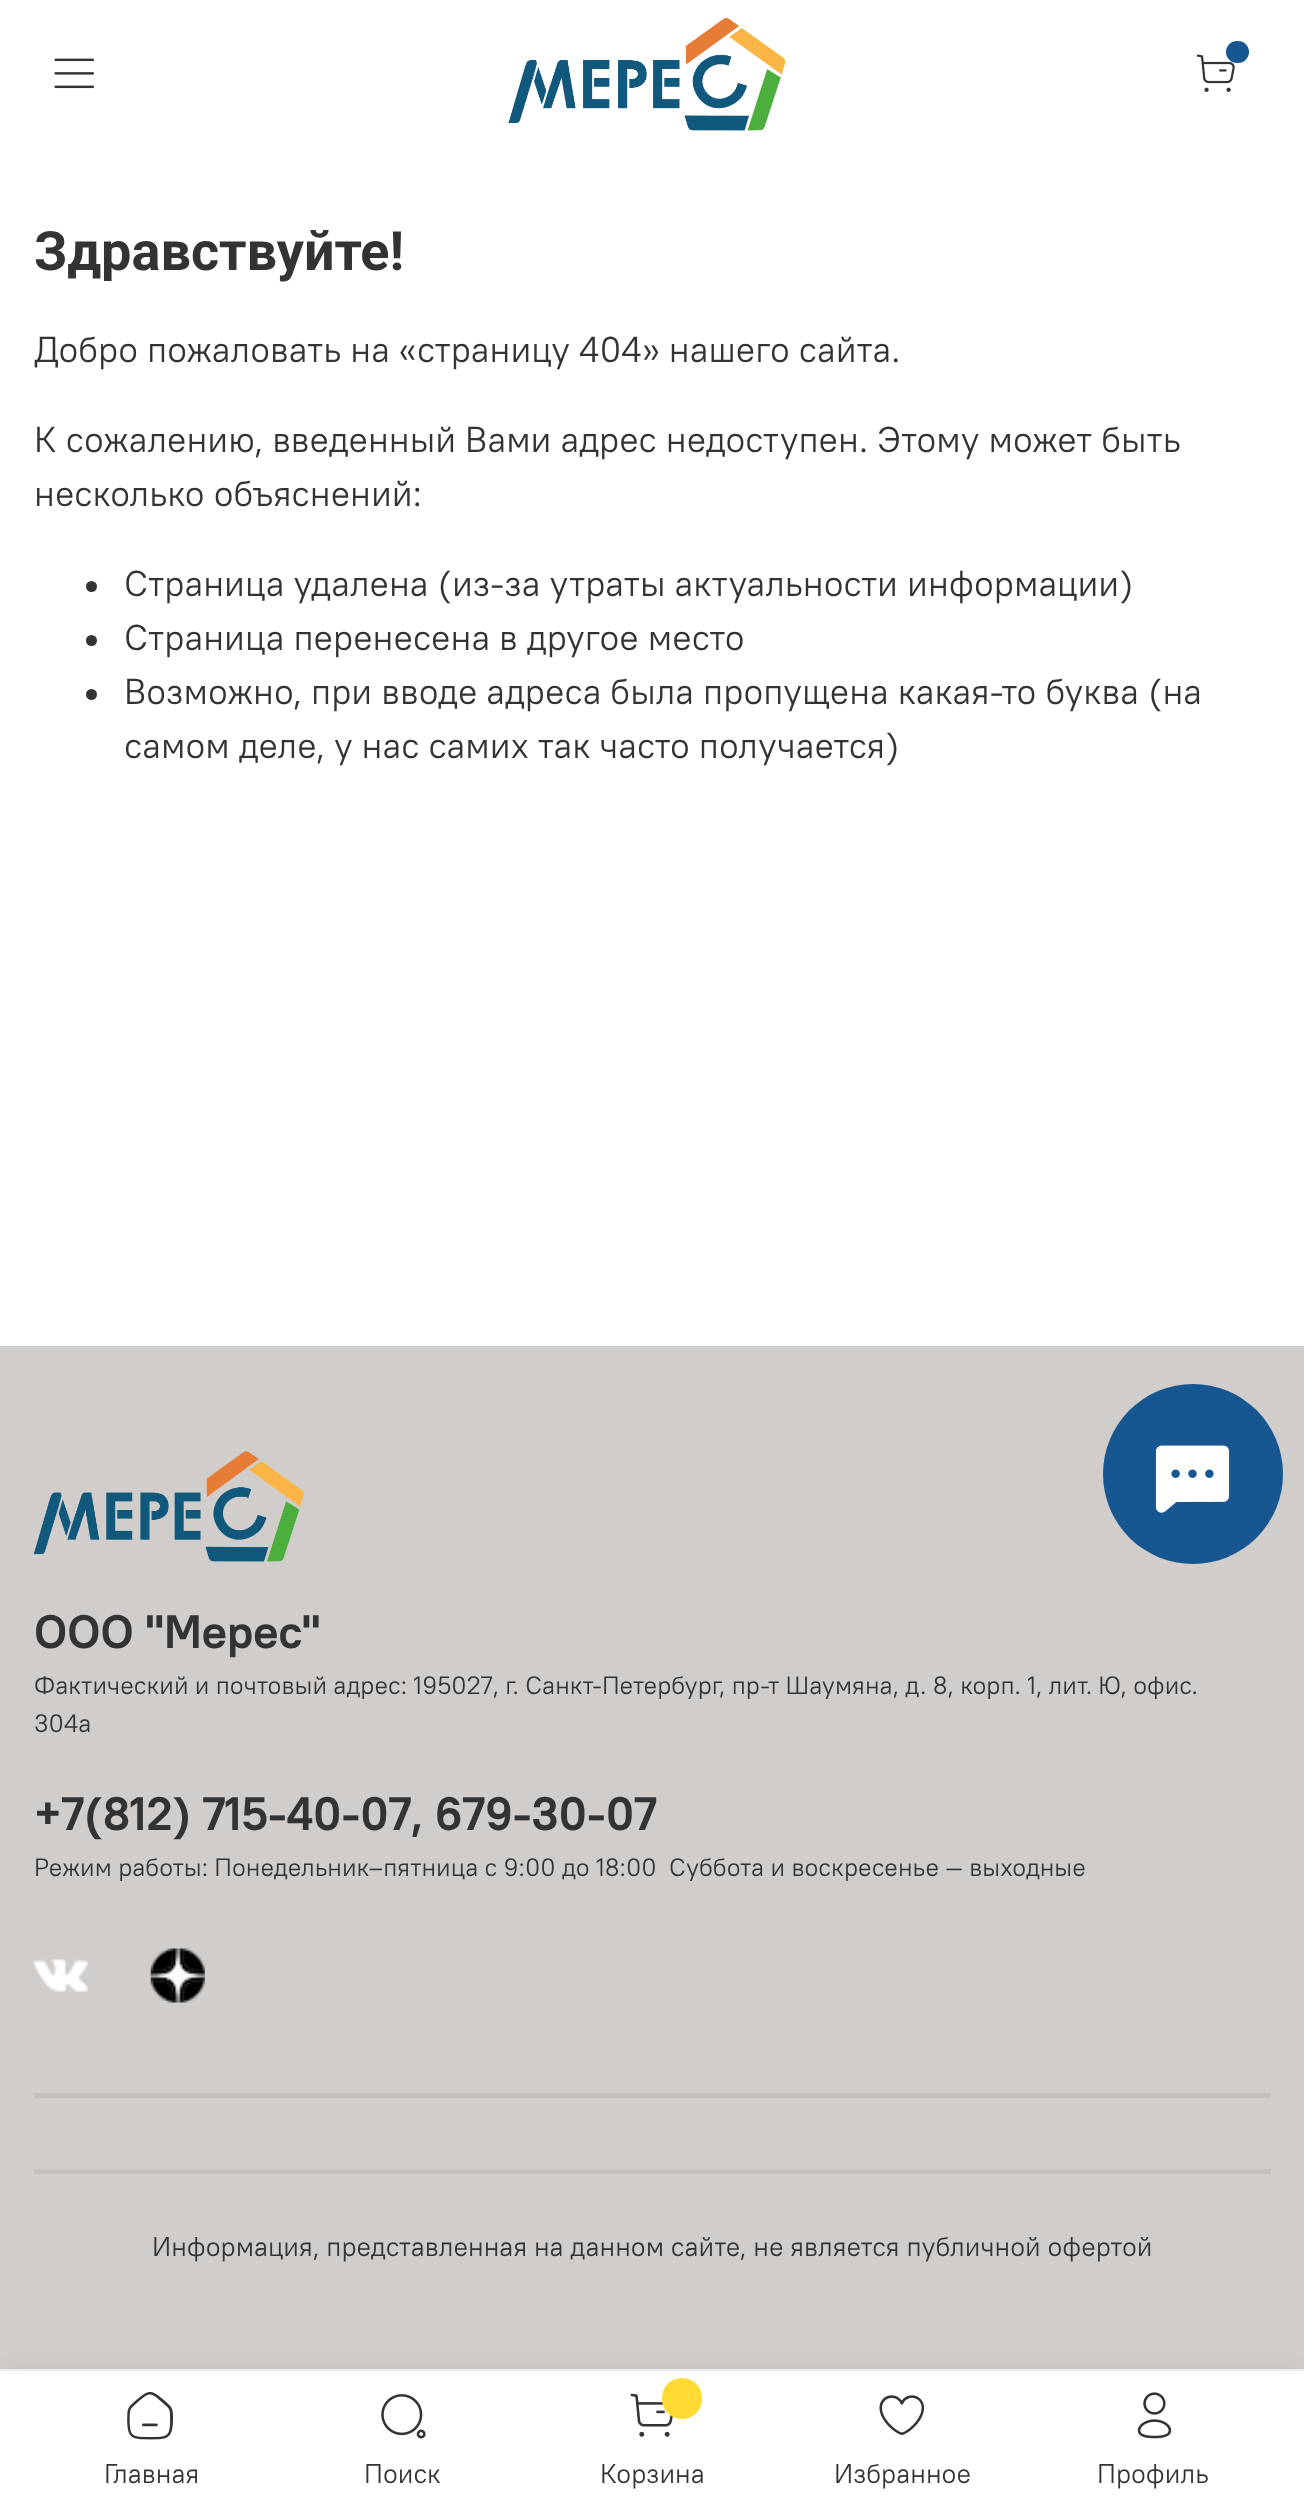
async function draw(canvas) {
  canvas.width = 1304;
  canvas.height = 2508;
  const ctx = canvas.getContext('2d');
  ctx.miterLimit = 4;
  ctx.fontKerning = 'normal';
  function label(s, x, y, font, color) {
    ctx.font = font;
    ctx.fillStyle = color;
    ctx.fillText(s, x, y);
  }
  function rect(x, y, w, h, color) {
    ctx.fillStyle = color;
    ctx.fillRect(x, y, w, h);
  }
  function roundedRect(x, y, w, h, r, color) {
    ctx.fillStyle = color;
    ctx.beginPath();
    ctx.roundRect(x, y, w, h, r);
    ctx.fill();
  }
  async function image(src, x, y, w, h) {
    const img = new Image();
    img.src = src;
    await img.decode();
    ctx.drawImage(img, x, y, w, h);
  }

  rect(0, 0, 1304, 2508, '#fff');
  await image('assets/img1.png', 54, 58, 41, 31);
  await image('assets/img2.png', 508, 18, 278, 113);
  await image('assets/img3.png', 1196, 54, 39, 38);
  roundedRect(1226, 41, 23, 22, 11, '#165791');
  label('Здравствуйте!', 34, 270, 'bold 54px Roboto', '#333');
  label('Добро пожаловать на «страницу 404» нашего сайта.', 34, 362, '36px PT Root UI', '#333');
  label('К сожалению, введенный Вами адрес недоступен. Этому может быть', 34, 452, '36px PT Root UI', '#333');
  label('несколько объяснений:', 34, 506, '36px PT Root UI', '#333');
  ctx.beginPath();
  ctx.arc(91.5, 586.5, 5.5, 0, 2 * Math.PI);
  ctx.fill();
  label('Страница удалена (из-за утраты актуальности информации)', 124, 596, '36px PT Root UI', '#333');
  ctx.beginPath();
  ctx.arc(91.5, 640.5, 5.5, 0, 2 * Math.PI);
  ctx.fill();
  label('Страница перенесена в другое место', 124, 650, '36px PT Root UI', '#333');
  ctx.beginPath();
  ctx.arc(91.5, 694.5, 5.5, 0, 2 * Math.PI);
  ctx.fill();
  label('Возможно, при вводе адреса была пропущена какая-то буква (на', 124, 704, '36px PT Root UI', '#333');
  label('самом деле, у нас самих так часто получается)', 124, 758, '36px PT Root UI', '#333');
  rect(0, 1346, 1304, 1023, '#d1cdca');
  await image('assets/img4.png', 33, 1451, 271, 111);
  label('ООО "Мерес"', 34, 1648, 'bold 46.75px PT Root UI', '#333');
  label('Фактический и почтовый адрес: 195027, г. Санкт-Петербург, пр-т Шаумяна, д. 8, корп. 1, лит. Ю, офис.', 34, 1694, '25.2px PT Root UI', '#333');
  label('304а', 34, 1732, '25.2px PT Root UI', '#333');
  label('+7(812) 715-40-07, 679-30-07', 34, 1830, 'bold 46.75px PT Root UI', '#333');
  label('Режим работы: Понедельник–пятница с 9:00 до 18:00', 34, 1876, '25.2px PT Root UI', '#333');
  label('Суббота и воскресенье — выходные', 669, 1876, '25.2px PT Root UI', '#333');
  await image('assets/img5.png', 33, 1959, 56, 33);
  await image('assets/img6.png', 150, 1948, 55, 55);
  rect(34, 2093, 1237, 5, '#c4c0bc');
  rect(34, 2169, 1237, 5, '#c4c0bc');
  label('Информация, представленная на данном сайте, не является публичной офертой', 152, 2256, '27px PT Root UI', '#333');
  ctx.fillStyle = '#165791';
  ctx.beginPath();
  ctx.arc(1193, 1474, 90, 0, 2 * Math.PI);
  ctx.fill();
  await image('assets/img7.png', 1155, 1445, 75, 68);
  ctx.fillStyle = '#0000001f';
  ctx.filter = 'blur(11px)';
  ctx.beginPath();
  ctx.rect(0, 2374, 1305, 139);
  ctx.fill();
  ctx.filter = 'none';
  rect(0, 2371, 1304, 137, '#fff');
  rect(0, 2369, 1304, 2, '#ededed');
  await image('assets/img8.png', 127, 2392, 47, 48);
  label('Главная', 104, 2483, '27px PT Root UI', '#333');
  await image('assets/img9.png', 381, 2394, 45, 45);
  label('Поиск', 364, 2483, '27px PT Root UI', '#333');
  await image('assets/img10.png', 630, 2393, 43, 44);
  roundedRect(662, 2378, 40, 41, 20, '#ffda33');
  label('Корзина', 600, 2483, '27px PT Root UI', '#333');
  await image('assets/img11.png', 879, 2395, 45, 40);
  label('Избранное', 834, 2483, '27px PT Root UI', '#333');
  await image('assets/img12.png', 1137, 2392, 35, 47);
  label('Профиль', 1097, 2483, '27px PT Root UI', '#333');
}

draw(document.querySelector('canvas'));
